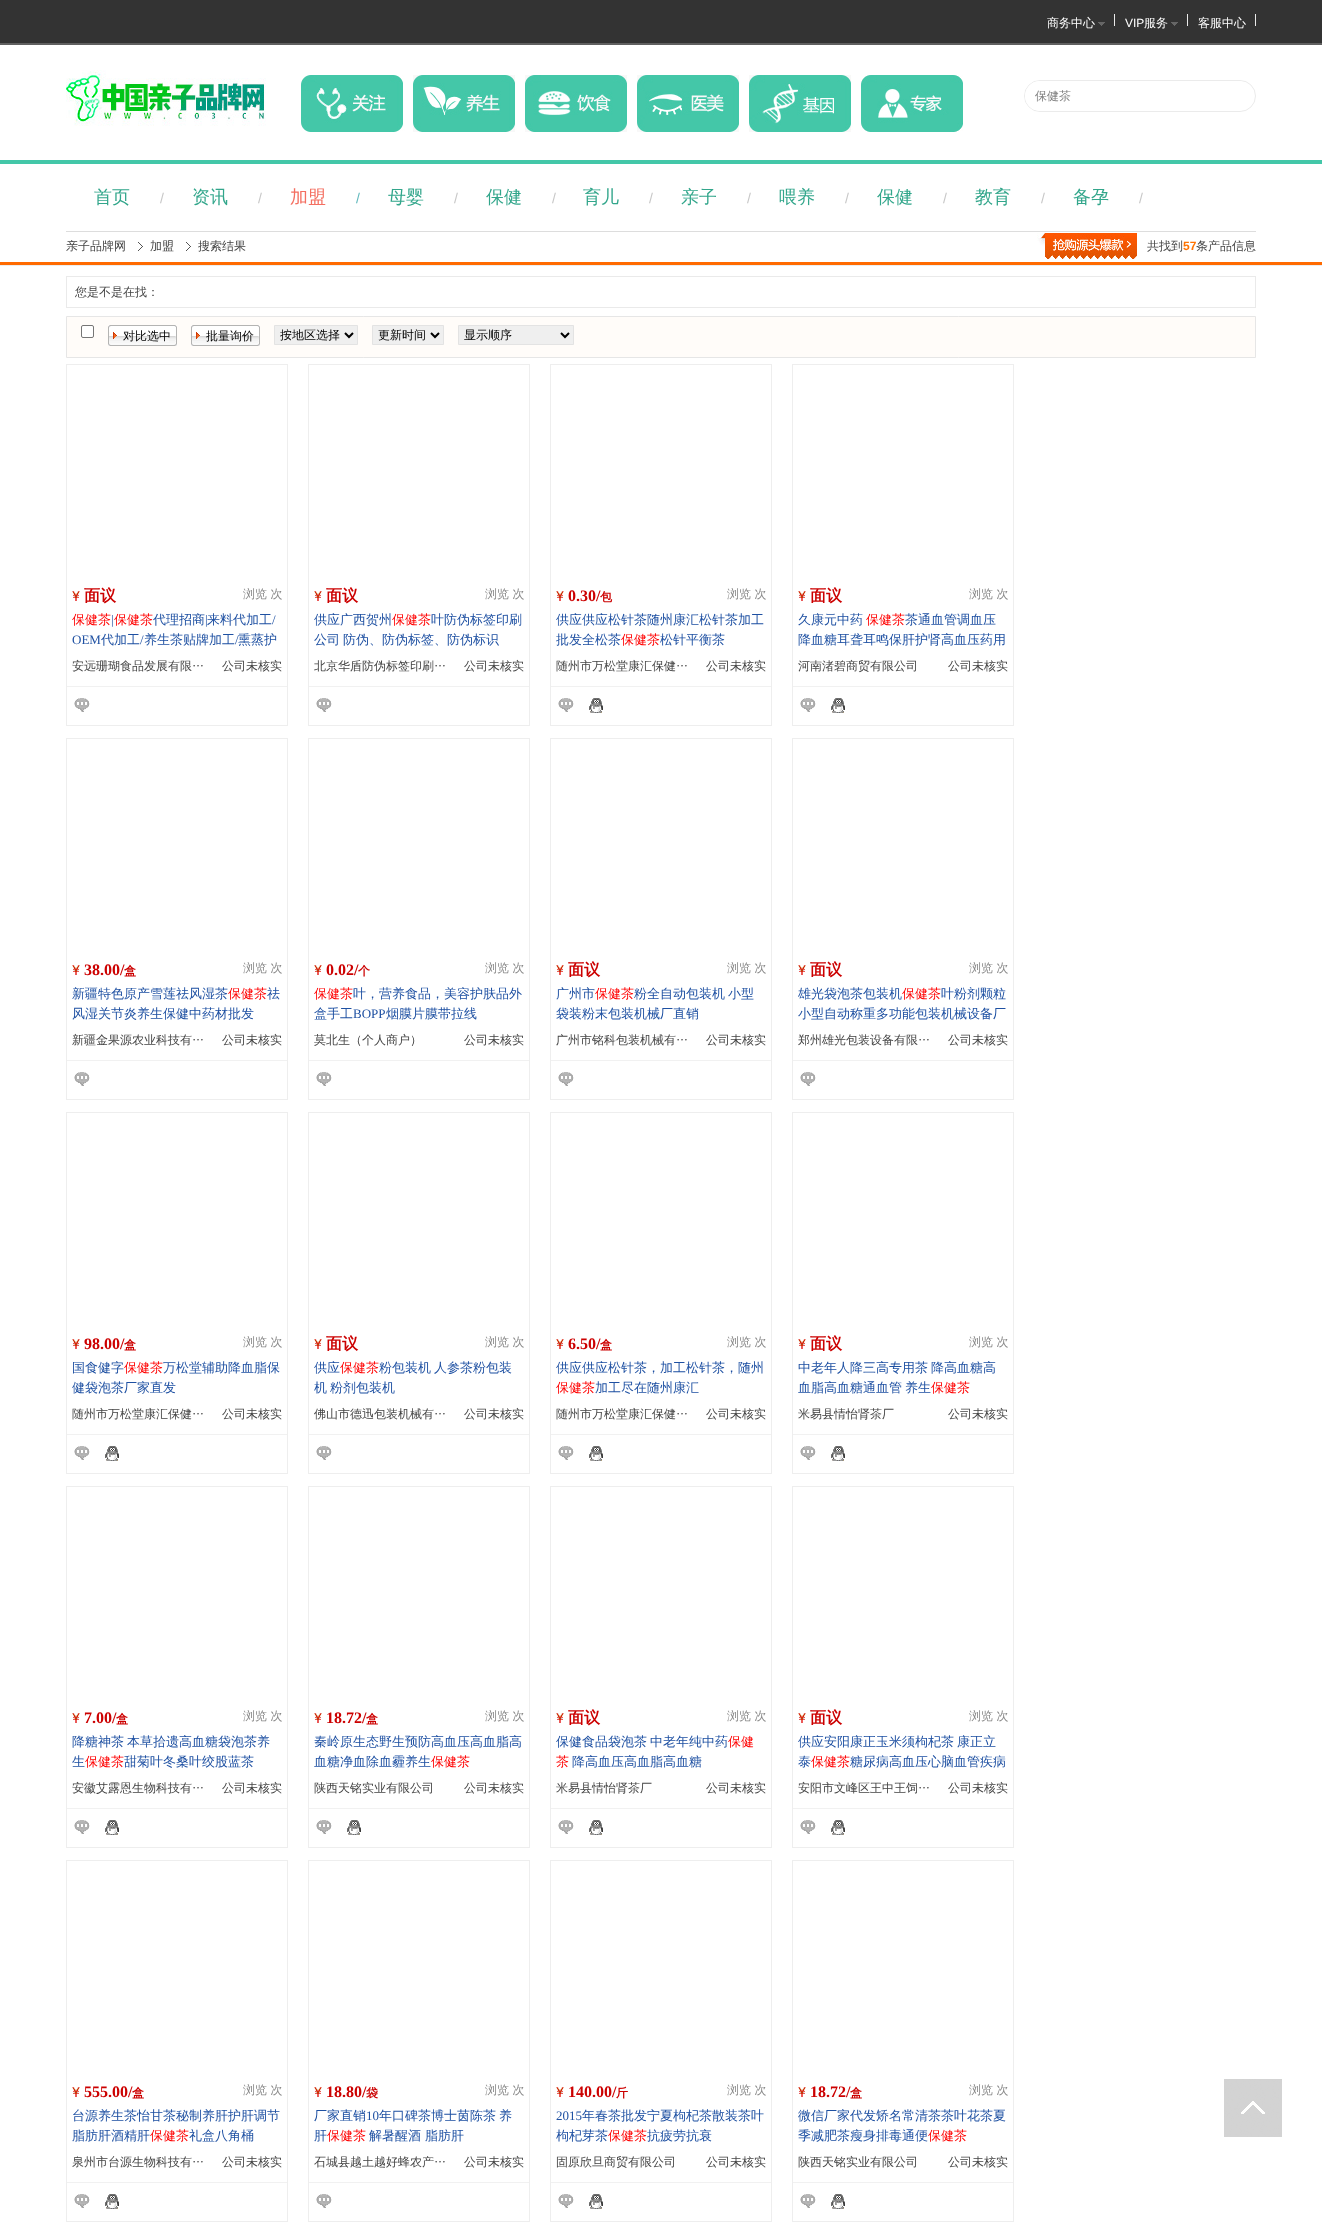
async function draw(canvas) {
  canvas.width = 1322;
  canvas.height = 2237;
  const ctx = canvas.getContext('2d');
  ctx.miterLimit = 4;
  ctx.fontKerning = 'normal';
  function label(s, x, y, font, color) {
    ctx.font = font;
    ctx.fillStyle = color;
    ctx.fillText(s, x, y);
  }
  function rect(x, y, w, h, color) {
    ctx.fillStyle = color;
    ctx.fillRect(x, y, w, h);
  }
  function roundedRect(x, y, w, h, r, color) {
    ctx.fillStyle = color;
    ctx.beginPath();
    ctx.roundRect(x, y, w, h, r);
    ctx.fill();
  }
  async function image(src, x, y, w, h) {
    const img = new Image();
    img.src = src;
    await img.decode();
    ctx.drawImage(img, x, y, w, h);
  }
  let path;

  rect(0, 0, 1322, 2237, '#fff');
  rect(0, 0, 1322, 43, '#333');
  rect(0, 43, 1322, 2, '#606060');
  rect(1114, 14, 1, 12, '#eaeaea');
  label('商务中心', 1047, 27, '500 12px WenQuanYi Zen Hei', '#fff');
  await image('assets/img1.png', 1098, 22, 7, 4);
  rect(1187, 14, 1, 12, '#eaeaea');
  label('VIP', 1125, 27, '12px Liberation Sans', '#fff');
  label('服务', 1144, 27, '500 12px WenQuanYi Zen Hei', '#fff');
  await image('assets/img1.png', 1171, 22, 7, 4);
  rect(1255, 14, 1, 12, '#eaeaea');
  label('客服中心', 1198, 27, '500 12px WenQuanYi Zen Hei', '#fff');
  rect(0, 160, 1322, 4, '#43c7a8');
  await image('assets/img2.png', 66, 70, 200, 56);
  await image('assets/img3.png', 301, 75, 662, 57);
  ctx.beginPath();
  ctx.roundRect(1024.5, 80.5, 231, 31, 15.5);
  ctx.strokeStyle = '#ebebeb';
  ctx.stroke();
  roundedRect(1025, 81, 228, 30, 15, '#fff');
  label('保健茶', 1035, 100, '500 12px WenQuanYi Zen Hei', '#808080');
  rect(66, 231, 1190, 1, '#ddd');
  label('首页', 94, 203, '500 18px WenQuanYi Zen Hei', '#32a68b');
  label('/', 160, 203, '14px Liberation Sans', '#c7c7c7');
  label('资讯', 192, 203, '500 18px WenQuanYi Zen Hei', '#32a68b');
  label('/', 258, 203, '14px Liberation Sans', '#c7c7c7');
  label('加盟', 290, 203, '500 18px WenQuanYi Zen Hei', '#f46f61');
  label('/', 356, 203, '14px Liberation Sans', '#61b9bd');
  label('母婴', 388, 203, '500 18px WenQuanYi Zen Hei', '#32a68b');
  label('/', 454, 203, '14px Liberation Sans', '#c7c7c7');
  label('保健', 486, 203, '500 18px WenQuanYi Zen Hei', '#32a68b');
  label('/', 552, 203, '14px Liberation Sans', '#c7c7c7');
  label('育儿', 583, 203, '500 18px WenQuanYi Zen Hei', '#32a68b');
  label('/', 649, 203, '14px Liberation Sans', '#c7c7c7');
  label('亲子', 681, 203, '500 18px WenQuanYi Zen Hei', '#32a68b');
  label('/', 747, 203, '14px Liberation Sans', '#c7c7c7');
  label('喂养', 779, 203, '500 18px WenQuanYi Zen Hei', '#32a68b');
  label('/', 845, 203, '14px Liberation Sans', '#c7c7c7');
  label('保健', 877, 203, '500 18px WenQuanYi Zen Hei', '#32a68b');
  label('/', 943, 203, '14px Liberation Sans', '#c7c7c7');
  label('教育', 975, 203, '500 18px WenQuanYi Zen Hei', '#32a68b');
  label('/', 1041, 203, '14px Liberation Sans', '#c7c7c7');
  label('备孕', 1073, 203, '500 18px WenQuanYi Zen Hei', '#32a68b');
  label('/', 1139, 203, '14px Liberation Sans', '#c7c7c7');
  label('亲子品牌网', 66, 250, '500 12px WenQuanYi Zen Hei', '#444');
  await image('assets/img4.png', 138, 242, 5, 9);
  label('加盟', 150, 250, '500 12px WenQuanYi Zen Hei', '#444');
  await image('assets/img4.png', 186, 242, 5, 9);
  label('搜索结果', 198, 250, '500 12px WenQuanYi Zen Hei', '#444');
  await image('assets/img5.png', 1037, 233, 100, 26);
  label('共找到', 1147, 250, '500 12px WenQuanYi Zen Hei', '#444');
  label('57', 1183, 250, 'bold 12px Liberation Sans', '#ff7300');
  label('条产品信息', 1196, 250, '500 12px WenQuanYi Zen Hei', '#444');
  rect(0, 262, 1322, 3, '#ff6a00');
  rect(0, 265, 1322, 1, '#ededed');
  ctx.strokeStyle = '#eaeaea';
  ctx.strokeRect(66.5, 276.5, 1189, 31);
  label('您是不是在找：', 75, 296, '500 12px WenQuanYi Zen Hei', '#444');
  ctx.fillStyle = '#fffcf9';
  ctx.beginPath();
  ctx.rect(66.5, 316.5, 1189, 41);
  ctx.fill();
  ctx.strokeStyle = '#e6e6e6';
  ctx.stroke();
  ctx.fillStyle = '#fff';
  ctx.beginPath();
  ctx.roundRect(81.5, 325.5, 12, 12, 1.5);
  ctx.fill();
  ctx.strokeStyle = '#767676';
  ctx.stroke();
  await image('assets/img6.png', 108, 325, 69, 21);
  label('对比选中', 123, 340, '500 12px WenQuanYi Zen Hei', '#000');
  await image('assets/img6.png', 191, 325, 69, 21);
  label('批量询价', 206, 340, '500 12px WenQuanYi Zen Hei', '#000');
  ctx.fillStyle = '#efefef';
  ctx.beginPath();
  ctx.rect(274.5, 325.5, 83, 19);
  ctx.fill();
  ctx.strokeStyle = '#e3e3e3';
  ctx.stroke();
  path = new Path2D('M345 333L349 337L353 333');
  ctx.strokeStyle = '#000';
  ctx.lineWidth = 2;
  ctx.stroke(path);
  label('按地区选择', 280, 339, '500 12px WenQuanYi Zen Hei', '#000');
  ctx.fillStyle = '#efefef';
  ctx.beginPath();
  ctx.rect(372.5, 325.5, 71, 19);
  ctx.fill();
  ctx.strokeStyle = '#e3e3e3';
  ctx.lineWidth = 1;
  ctx.stroke();
  path = new Path2D('M431 333L435 337L439 333');
  ctx.strokeStyle = '#000';
  ctx.lineWidth = 2;
  ctx.stroke(path);
  label('更新时间', 378, 339, '500 12px WenQuanYi Zen Hei', '#000');
  ctx.fillStyle = '#efefef';
  ctx.beginPath();
  ctx.rect(458.5, 325.5, 115, 19);
  ctx.fill();
  ctx.strokeStyle = '#e3e3e3';
  ctx.lineWidth = 1;
  ctx.stroke();
  path = new Path2D('M561 333L565 337L569 333');
  ctx.strokeStyle = '#000';
  ctx.lineWidth = 2;
  ctx.stroke(path);
  label('显示顺序', 464, 339, '500 12px WenQuanYi Zen Hei', '#000');
  ctx.strokeStyle = '#eee';
  ctx.lineWidth = 1;
  ctx.strokeRect(66.5, 364.5, 221, 361);
  await image('assets/img7.png', 72, 591, 8, 10);
  label('面议', 84, 601, 'bold 16px WenQuanYi Zen Hei', '#c00');
  label('浏览 次', 243, 598, '500 12px WenQuanYi Zen Hei', '#888');
  label('保健茶', 72, 624, '500 13px WenQuanYi Zen Hei', '#f00');
  label('|', 111, 624, '13px Liberation Serif', '#1e50a2');
  label('保健茶', 114, 624, '500 13px WenQuanYi Zen Hei', '#f00');
  label('代理招商', 153, 624, '500 13px WenQuanYi Zen Hei', '#1e50a2');
  label('|', 205, 624, '13px Liberation Serif', '#1e50a2');
  label('来料代加工', 207, 624, '500 13px WenQuanYi Zen Hei', '#1e50a2');
  label('/', 272, 624, '13px Liberation Serif', '#1e50a2');
  label('OEM', 72, 644, '13px Liberation Serif', '#1e50a2');
  label('代加工 养生茶贴牌加工', 101, 644, '500 13px WenQuanYi Zen Hei', '#1e50a2');
  label('/', 235, 644, '13px Liberation Serif', '#1e50a2');
  label('熏蒸护', 238, 644, '500 13px WenQuanYi Zen Hei', '#1e50a2');
  label('/', 140, 644, '13px Liberation Serif', '#1e50a2');
  label('安远珊瑚食品发展有限…', 72, 670, '500 12px WenQuanYi Zen Hei', '#444');
  label('公司未核实', 222, 670, '500 12px WenQuanYi Zen Hei', '#444');
  rect(67, 686, 220, 1, '#f1f1f1');
  await image('assets/img8.png', 74, 698, 16, 14);
  ctx.strokeRect(308.5, 364.5, 221, 361);
  await image('assets/img7.png', 314, 591, 8, 10);
  label('面议', 326, 601, 'bold 16px WenQuanYi Zen Hei', '#c00');
  label('浏览 次', 485, 598, '500 12px WenQuanYi Zen Hei', '#888');
  label('供应广西贺州', 314, 624, '500 13px WenQuanYi Zen Hei', '#1e50a2');
  label('保健茶', 392, 624, '500 13px WenQuanYi Zen Hei', '#f00');
  label('叶防伪标签印刷', 431, 624, '500 13px WenQuanYi Zen Hei', '#1e50a2');
  ctx.wordSpacing = '-1px';
  label('公司 防伪、防伪标签、防伪标识', 314, 644, '500 13px WenQuanYi Zen Hei', '#1e50a2');
  ctx.wordSpacing = '0px';
  label('北京华盾防伪标签印刷…', 314, 670, '500 12px WenQuanYi Zen Hei', '#444');
  label('公司未核实', 464, 670, '500 12px WenQuanYi Zen Hei', '#444');
  rect(309, 686, 220, 1, '#f1f1f1');
  await image('assets/img8.png', 316, 698, 16, 14);
  ctx.strokeRect(550.5, 364.5, 221, 361);
  await image('assets/img7.png', 556, 591, 8, 10);
  label('0.30/', 568, 601, 'bold 16px Liberation Serif', '#c00');
  label('包', 600, 601, 'bold 12px WenQuanYi Zen Hei', '#c00');
  label('浏览 次', 727, 598, '500 12px WenQuanYi Zen Hei', '#888');
  label('供应供应松针茶随州康汇松针茶加工', 556, 624, '500 13px WenQuanYi Zen Hei', '#1e50a2');
  label('批发全松茶', 556, 644, '500 13px WenQuanYi Zen Hei', '#1e50a2');
  label('保健茶', 621, 644, '500 13px WenQuanYi Zen Hei', '#f00');
  label('松针平衡茶', 660, 644, '500 13px WenQuanYi Zen Hei', '#1e50a2');
  label('随州市万松堂康汇保健…', 556, 670, '500 12px WenQuanYi Zen Hei', '#444');
  label('公司未核实', 706, 670, '500 12px WenQuanYi Zen Hei', '#444');
  rect(551, 686, 220, 1, '#f1f1f1');
  await image('assets/img8.png', 558, 698, 16, 14);
  await image('assets/img9.png', 589, 698, 14, 15);
  ctx.strokeRect(792.5, 364.5, 221, 361);
  await image('assets/img7.png', 798, 591, 8, 10);
  label('面议', 810, 601, 'bold 16px WenQuanYi Zen Hei', '#c00');
  label('浏览 次', 969, 598, '500 12px WenQuanYi Zen Hei', '#888');
  label('久康元中药', 798, 624, '500 13px WenQuanYi Zen Hei', '#1e50a2');
  label('保健茶', 866, 624, '500 13px WenQuanYi Zen Hei', '#f00');
  label('茶通血管调血压', 905, 624, '500 13px WenQuanYi Zen Hei', '#1e50a2');
  label('降血糖耳聋耳鸣保肝护肾高血压药用', 798, 644, '500 13px WenQuanYi Zen Hei', '#1e50a2');
  label('河南渚碧商贸有限公司', 798, 670, '500 12px WenQuanYi Zen Hei', '#444');
  label('公司未核实', 948, 670, '500 12px WenQuanYi Zen Hei', '#444');
  rect(793, 686, 220, 1, '#f1f1f1');
  await image('assets/img8.png', 800, 698, 16, 14);
  await image('assets/img9.png', 831, 698, 14, 15);
  ctx.strokeRect(66.5, 738.5, 221, 361);
  await image('assets/img7.png', 72, 965, 8, 10);
  label('38.00/', 84, 975, 'bold 16px Liberation Serif', '#c00');
  label('盒', 124, 975, 'bold 12px WenQuanYi Zen Hei', '#c00');
  label('浏览 次', 243, 972, '500 12px WenQuanYi Zen Hei', '#888');
  label('新疆特色原产雪莲祛风湿茶', 72, 998, '500 13px WenQuanYi Zen Hei', '#1e50a2');
  label('保健茶', 228, 998, '500 13px WenQuanYi Zen Hei', '#f00');
  label('祛', 267, 998, '500 13px WenQuanYi Zen Hei', '#1e50a2');
  label('风湿关节炎养生保健中药材批发', 72, 1018, '500 13px WenQuanYi Zen Hei', '#1e50a2');
  label('新疆金果源农业科技有…', 72, 1044, '500 12px WenQuanYi Zen Hei', '#444');
  label('公司未核实', 222, 1044, '500 12px WenQuanYi Zen Hei', '#444');
  rect(67, 1060, 220, 1, '#f1f1f1');
  await image('assets/img8.png', 74, 1072, 16, 14);
  ctx.strokeRect(308.5, 738.5, 221, 361);
  await image('assets/img7.png', 314, 965, 8, 10);
  label('0.02/', 326, 975, 'bold 16px Liberation Serif', '#c00');
  label('个', 358, 975, 'bold 12px WenQuanYi Zen Hei', '#c00');
  label('浏览 次', 485, 972, '500 12px WenQuanYi Zen Hei', '#888');
  label('保健茶', 314, 998, '500 13px WenQuanYi Zen Hei', '#f00');
  label('叶，营养食品，美容护肤品外', 353, 998, '500 13px WenQuanYi Zen Hei', '#1e50a2');
  label('盒手工', 314, 1018, '500 13px WenQuanYi Zen Hei', '#1e50a2');
  label('BOPP', 353, 1018, '13px Liberation Serif', '#1e50a2');
  label('烟膜片膜带拉线', 386, 1018, '500 13px WenQuanYi Zen Hei', '#1e50a2');
  label('莫北生（个人商户）', 314, 1044, '500 12px WenQuanYi Zen Hei', '#444');
  label('公司未核实', 464, 1044, '500 12px WenQuanYi Zen Hei', '#444');
  rect(309, 1060, 220, 1, '#f1f1f1');
  await image('assets/img8.png', 316, 1072, 16, 14);
  ctx.strokeRect(550.5, 738.5, 221, 361);
  await image('assets/img7.png', 556, 965, 8, 10);
  label('面议', 568, 975, 'bold 16px WenQuanYi Zen Hei', '#c00');
  label('浏览 次', 727, 972, '500 12px WenQuanYi Zen Hei', '#888');
  label('广州市', 556, 998, '500 13px WenQuanYi Zen Hei', '#1e50a2');
  label('保健茶', 595, 998, '500 13px WenQuanYi Zen Hei', '#f00');
  ctx.wordSpacing = '-1px';
  label('粉全自动包装机 小型', 634, 998, '500 13px WenQuanYi Zen Hei', '#1e50a2');
  ctx.wordSpacing = '0px';
  label('袋装粉末包装机械厂直销', 556, 1018, '500 13px WenQuanYi Zen Hei', '#1e50a2');
  label('广州市铭科包装机械有…', 556, 1044, '500 12px WenQuanYi Zen Hei', '#444');
  label('公司未核实', 706, 1044, '500 12px WenQuanYi Zen Hei', '#444');
  rect(551, 1060, 220, 1, '#f1f1f1');
  await image('assets/img8.png', 558, 1072, 16, 14);
  ctx.strokeRect(792.5, 738.5, 221, 361);
  await image('assets/img7.png', 798, 965, 8, 10);
  label('面议', 810, 975, 'bold 16px WenQuanYi Zen Hei', '#c00');
  label('浏览 次', 969, 972, '500 12px WenQuanYi Zen Hei', '#888');
  label('雄光袋泡茶包装机', 798, 998, '500 13px WenQuanYi Zen Hei', '#1e50a2');
  label('保健茶', 902, 998, '500 13px WenQuanYi Zen Hei', '#f00');
  label('叶粉剂颗粒', 941, 998, '500 13px WenQuanYi Zen Hei', '#1e50a2');
  label('小型自动称重多功能包装机械设备厂', 798, 1018, '500 13px WenQuanYi Zen Hei', '#1e50a2');
  label('郑州雄光包装设备有限…', 798, 1044, '500 12px WenQuanYi Zen Hei', '#444');
  label('公司未核实', 948, 1044, '500 12px WenQuanYi Zen Hei', '#444');
  rect(793, 1060, 220, 1, '#f1f1f1');
  await image('assets/img8.png', 800, 1072, 16, 14);
  ctx.strokeRect(66.5, 1112.5, 221, 361);
  await image('assets/img7.png', 72, 1339, 8, 10);
  label('98.00/', 84, 1349, 'bold 16px Liberation Serif', '#c00');
  label('盒', 124, 1349, 'bold 12px WenQuanYi Zen Hei', '#c00');
  label('浏览 次', 243, 1346, '500 12px WenQuanYi Zen Hei', '#888');
  label('国食健字', 72, 1372, '500 13px WenQuanYi Zen Hei', '#1e50a2');
  label('保健茶', 124, 1372, '500 13px WenQuanYi Zen Hei', '#f00');
  label('万松堂辅助降血脂保', 163, 1372, '500 13px WenQuanYi Zen Hei', '#1e50a2');
  label('健袋泡茶厂家直发', 72, 1392, '500 13px WenQuanYi Zen Hei', '#1e50a2');
  label('随州市万松堂康汇保健…', 72, 1418, '500 12px WenQuanYi Zen Hei', '#444');
  label('公司未核实', 222, 1418, '500 12px WenQuanYi Zen Hei', '#444');
  rect(67, 1434, 220, 1, '#f1f1f1');
  await image('assets/img8.png', 74, 1446, 16, 14);
  await image('assets/img9.png', 105, 1446, 14, 15);
  ctx.strokeRect(308.5, 1112.5, 221, 361);
  await image('assets/img7.png', 314, 1339, 8, 10);
  label('面议', 326, 1349, 'bold 16px WenQuanYi Zen Hei', '#c00');
  label('浏览 次', 485, 1346, '500 12px WenQuanYi Zen Hei', '#888');
  label('供应', 314, 1372, '500 13px WenQuanYi Zen Hei', '#1e50a2');
  label('保健茶', 340, 1372, '500 13px WenQuanYi Zen Hei', '#f00');
  ctx.wordSpacing = '-1px';
  label('粉包装机 人参茶粉包装', 379, 1372, '500 13px WenQuanYi Zen Hei', '#1e50a2');
  label('机 粉剂包装机', 314, 1392, '500 13px WenQuanYi Zen Hei', '#1e50a2');
  ctx.wordSpacing = '0px';
  label('佛山市德迅包装机械有…', 314, 1418, '500 12px WenQuanYi Zen Hei', '#444');
  label('公司未核实', 464, 1418, '500 12px WenQuanYi Zen Hei', '#444');
  rect(309, 1434, 220, 1, '#f1f1f1');
  await image('assets/img8.png', 316, 1446, 16, 14);
  ctx.strokeRect(550.5, 1112.5, 221, 361);
  await image('assets/img7.png', 556, 1339, 8, 10);
  label('6.50/', 568, 1349, 'bold 16px Liberation Serif', '#c00');
  label('盒', 600, 1349, 'bold 12px WenQuanYi Zen Hei', '#c00');
  label('浏览 次', 727, 1346, '500 12px WenQuanYi Zen Hei', '#888');
  label('供应供应松针茶，加工松针茶，随州', 556, 1372, '500 13px WenQuanYi Zen Hei', '#1e50a2');
  label('保健茶', 556, 1392, '500 13px WenQuanYi Zen Hei', '#f00');
  label('加工尽在随州康汇', 595, 1392, '500 13px WenQuanYi Zen Hei', '#1e50a2');
  label('随州市万松堂康汇保健…', 556, 1418, '500 12px WenQuanYi Zen Hei', '#444');
  label('公司未核实', 706, 1418, '500 12px WenQuanYi Zen Hei', '#444');
  rect(551, 1434, 220, 1, '#f1f1f1');
  await image('assets/img8.png', 558, 1446, 16, 14);
  await image('assets/img9.png', 589, 1446, 14, 15);
  ctx.strokeRect(792.5, 1112.5, 221, 361);
  await image('assets/img7.png', 798, 1339, 8, 10);
  label('面议', 810, 1349, 'bold 16px WenQuanYi Zen Hei', '#c00');
  label('浏览 次', 969, 1346, '500 12px WenQuanYi Zen Hei', '#888');
  ctx.wordSpacing = '-1px';
  label('中老年人降三高专用茶 降高血糖高', 798, 1372, '500 13px WenQuanYi Zen Hei', '#1e50a2');
  label('血脂高血糖通血管 养生', 798, 1392, '500 13px WenQuanYi Zen Hei', '#1e50a2');
  ctx.wordSpacing = '0px';
  label('保健茶', 931, 1392, '500 13px WenQuanYi Zen Hei', '#f00');
  label('米易县情怡肾茶厂', 798, 1418, '500 12px WenQuanYi Zen Hei', '#444');
  label('公司未核实', 948, 1418, '500 12px WenQuanYi Zen Hei', '#444');
  rect(793, 1434, 220, 1, '#f1f1f1');
  await image('assets/img8.png', 800, 1446, 16, 14);
  await image('assets/img9.png', 831, 1446, 14, 15);
  ctx.strokeRect(66.5, 1486.5, 221, 361);
  await image('assets/img7.png', 72, 1713, 8, 10);
  label('7.00/', 84, 1723, 'bold 16px Liberation Serif', '#c00');
  label('盒', 116, 1723, 'bold 12px WenQuanYi Zen Hei', '#c00');
  label('浏览 次', 243, 1720, '500 12px WenQuanYi Zen Hei', '#888');
  ctx.wordSpacing = '-1px';
  label('降糖神茶 本草拾遗高血糖袋泡茶养', 72, 1746, '500 13px WenQuanYi Zen Hei', '#1e50a2');
  ctx.wordSpacing = '0px';
  label('生', 72, 1766, '500 13px WenQuanYi Zen Hei', '#1e50a2');
  label('保健茶', 85, 1766, '500 13px WenQuanYi Zen Hei', '#f00');
  label('甜菊叶冬桑叶绞股蓝茶', 124, 1766, '500 13px WenQuanYi Zen Hei', '#1e50a2');
  label('安徽艾露恩生物科技有…', 72, 1792, '500 12px WenQuanYi Zen Hei', '#444');
  label('公司未核实', 222, 1792, '500 12px WenQuanYi Zen Hei', '#444');
  rect(67, 1808, 220, 1, '#f1f1f1');
  await image('assets/img8.png', 74, 1820, 16, 14);
  await image('assets/img9.png', 105, 1820, 14, 15);
  ctx.strokeRect(308.5, 1486.5, 221, 361);
  await image('assets/img7.png', 314, 1713, 8, 10);
  label('18.72/', 326, 1723, 'bold 16px Liberation Serif', '#c00');
  label('盒', 366, 1723, 'bold 12px WenQuanYi Zen Hei', '#c00');
  label('浏览 次', 485, 1720, '500 12px WenQuanYi Zen Hei', '#888');
  label('秦岭原生态野生预防高血压高血脂高', 314, 1746, '500 13px WenQuanYi Zen Hei', '#1e50a2');
  label('血糖净血除血霾养生', 314, 1766, '500 13px WenQuanYi Zen Hei', '#1e50a2');
  label('保健茶', 431, 1766, '500 13px WenQuanYi Zen Hei', '#f00');
  label('陕西天铭实业有限公司', 314, 1792, '500 12px WenQuanYi Zen Hei', '#444');
  label('公司未核实', 464, 1792, '500 12px WenQuanYi Zen Hei', '#444');
  rect(309, 1808, 220, 1, '#f1f1f1');
  await image('assets/img8.png', 316, 1820, 16, 14);
  await image('assets/img9.png', 347, 1820, 14, 15);
  ctx.strokeRect(550.5, 1486.5, 221, 361);
  await image('assets/img7.png', 556, 1713, 8, 10);
  label('面议', 568, 1723, 'bold 16px WenQuanYi Zen Hei', '#c00');
  label('浏览 次', 727, 1720, '500 12px WenQuanYi Zen Hei', '#888');
  ctx.wordSpacing = '-1px';
  label('保健食品袋泡茶 中老年纯中药', 556, 1746, '500 13px WenQuanYi Zen Hei', '#1e50a2');
  ctx.wordSpacing = '0px';
  label('保健', 728, 1746, '500 13px WenQuanYi Zen Hei', '#f00');
  label('茶', 556, 1766, '500 13px WenQuanYi Zen Hei', '#f00');
  label('降高血压高血脂高血糖', 572, 1766, '500 13px WenQuanYi Zen Hei', '#1e50a2');
  label('米易县情怡肾茶厂', 556, 1792, '500 12px WenQuanYi Zen Hei', '#444');
  label('公司未核实', 706, 1792, '500 12px WenQuanYi Zen Hei', '#444');
  rect(551, 1808, 220, 1, '#f1f1f1');
  await image('assets/img8.png', 558, 1820, 16, 14);
  await image('assets/img9.png', 589, 1820, 14, 15);
  ctx.strokeRect(792.5, 1486.5, 221, 361);
  await image('assets/img7.png', 798, 1713, 8, 10);
  label('面议', 810, 1723, 'bold 16px WenQuanYi Zen Hei', '#c00');
  label('浏览 次', 969, 1720, '500 12px WenQuanYi Zen Hei', '#888');
  ctx.wordSpacing = '-1px';
  label('供应安阳康正玉米须枸杞茶 康正立', 798, 1746, '500 13px WenQuanYi Zen Hei', '#1e50a2');
  ctx.wordSpacing = '0px';
  label('泰', 798, 1766, '500 13px WenQuanYi Zen Hei', '#1e50a2');
  label('保健茶', 811, 1766, '500 13px WenQuanYi Zen Hei', '#f00');
  label('糖尿病高血压心脑血管疾病', 850, 1766, '500 13px WenQuanYi Zen Hei', '#1e50a2');
  label('安阳市文峰区王中王饲…', 798, 1792, '500 12px WenQuanYi Zen Hei', '#444');
  label('公司未核实', 948, 1792, '500 12px WenQuanYi Zen Hei', '#444');
  rect(793, 1808, 220, 1, '#f1f1f1');
  await image('assets/img8.png', 800, 1820, 16, 14);
  await image('assets/img9.png', 831, 1820, 14, 15);
  ctx.strokeRect(66.5, 1860.5, 221, 361);
  await image('assets/img7.png', 72, 2087, 8, 10);
  label('555.00/', 84, 2097, 'bold 16px Liberation Serif', '#c00');
  label('盒', 132, 2097, 'bold 12px WenQuanYi Zen Hei', '#c00');
  label('浏览 次', 243, 2094, '500 12px WenQuanYi Zen Hei', '#888');
  label('台源养生茶怡甘茶秘制养肝护肝调节', 72, 2120, '500 13px WenQuanYi Zen Hei', '#1e50a2');
  label('脂肪肝酒精肝', 72, 2140, '500 13px WenQuanYi Zen Hei', '#1e50a2');
  label('保健茶', 150, 2140, '500 13px WenQuanYi Zen Hei', '#f00');
  label('礼盒八角桶', 189, 2140, '500 13px WenQuanYi Zen Hei', '#1e50a2');
  label('泉州市台源生物科技有…', 72, 2166, '500 12px WenQuanYi Zen Hei', '#444');
  label('公司未核实', 222, 2166, '500 12px WenQuanYi Zen Hei', '#444');
  rect(67, 2182, 220, 1, '#f1f1f1');
  await image('assets/img8.png', 74, 2194, 16, 14);
  await image('assets/img9.png', 105, 2194, 14, 15);
  ctx.strokeRect(308.5, 1860.5, 221, 361);
  await image('assets/img7.png', 314, 2087, 8, 10);
  label('18.80/', 326, 2097, 'bold 16px Liberation Serif', '#c00');
  label('袋', 366, 2097, 'bold 12px WenQuanYi Zen Hei', '#c00');
  label('浏览 次', 485, 2094, '500 12px WenQuanYi Zen Hei', '#888');
  label('厂家直销', 314, 2120, '500 13px WenQuanYi Zen Hei', '#1e50a2');
  label('10', 366, 2120, '13px Liberation Serif', '#1e50a2');
  ctx.wordSpacing = '-1px';
  label('年口碑茶博士茵陈茶 养', 379, 2120, '500 13px WenQuanYi Zen Hei', '#1e50a2');
  ctx.wordSpacing = '0px';
  label('肝', 314, 2140, '500 13px WenQuanYi Zen Hei', '#1e50a2');
  label('保健茶', 327, 2140, '500 13px WenQuanYi Zen Hei', '#f00');
  label('解暑醒酒 脂肪肝', 369, 2140, '500 13px WenQuanYi Zen Hei', '#1e50a2');
  label('石城县越土越好蜂农产…', 314, 2166, '500 12px WenQuanYi Zen Hei', '#444');
  label('公司未核实', 464, 2166, '500 12px WenQuanYi Zen Hei', '#444');
  rect(309, 2182, 220, 1, '#f1f1f1');
  await image('assets/img8.png', 316, 2194, 16, 14);
  ctx.strokeRect(550.5, 1860.5, 221, 361);
  await image('assets/img7.png', 556, 2087, 8, 10);
  label('140.00/', 568, 2097, 'bold 16px Liberation Serif', '#c00');
  label('斤', 616, 2097, 'bold 12px WenQuanYi Zen Hei', '#c00');
  label('浏览 次', 727, 2094, '500 12px WenQuanYi Zen Hei', '#888');
  label('2015', 556, 2120, '13px Liberation Serif', '#1e50a2');
  label('年春茶批发宁夏枸杞茶散装茶叶', 582, 2120, '500 13px WenQuanYi Zen Hei', '#1e50a2');
  label('枸杞芽茶', 556, 2140, '500 13px WenQuanYi Zen Hei', '#1e50a2');
  label('保健茶', 608, 2140, '500 13px WenQuanYi Zen Hei', '#f00');
  label('抗疲劳抗衰', 647, 2140, '500 13px WenQuanYi Zen Hei', '#1e50a2');
  label('固原欣旦商贸有限公司', 556, 2166, '500 12px WenQuanYi Zen Hei', '#444');
  label('公司未核实', 706, 2166, '500 12px WenQuanYi Zen Hei', '#444');
  rect(551, 2182, 220, 1, '#f1f1f1');
  await image('assets/img8.png', 558, 2194, 16, 14);
  await image('assets/img9.png', 589, 2194, 14, 15);
  ctx.strokeRect(792.5, 1860.5, 221, 361);
  await image('assets/img7.png', 798, 2087, 8, 10);
  label('18.72/', 810, 2097, 'bold 16px Liberation Serif', '#c00');
  label('盒', 850, 2097, 'bold 12px WenQuanYi Zen Hei', '#c00');
  label('浏览 次', 969, 2094, '500 12px WenQuanYi Zen Hei', '#888');
  label('微信厂家代发矫名常清茶茶叶花茶夏', 798, 2120, '500 13px WenQuanYi Zen Hei', '#1e50a2');
  label('季减肥茶瘦身排毒通便', 798, 2140, '500 13px WenQuanYi Zen Hei', '#1e50a2');
  label('保健茶', 928, 2140, '500 13px WenQuanYi Zen Hei', '#f00');
  label('陕西天铭实业有限公司', 798, 2166, '500 12px WenQuanYi Zen Hei', '#444');
  label('公司未核实', 948, 2166, '500 12px WenQuanYi Zen Hei', '#444');
  rect(793, 2182, 220, 1, '#f1f1f1');
  await image('assets/img8.png', 800, 2194, 16, 14);
  await image('assets/img9.png', 831, 2194, 14, 15);
  await image('assets/img10.png', 1224, 2079, 58, 58);
}

draw(document.querySelector('canvas'));
